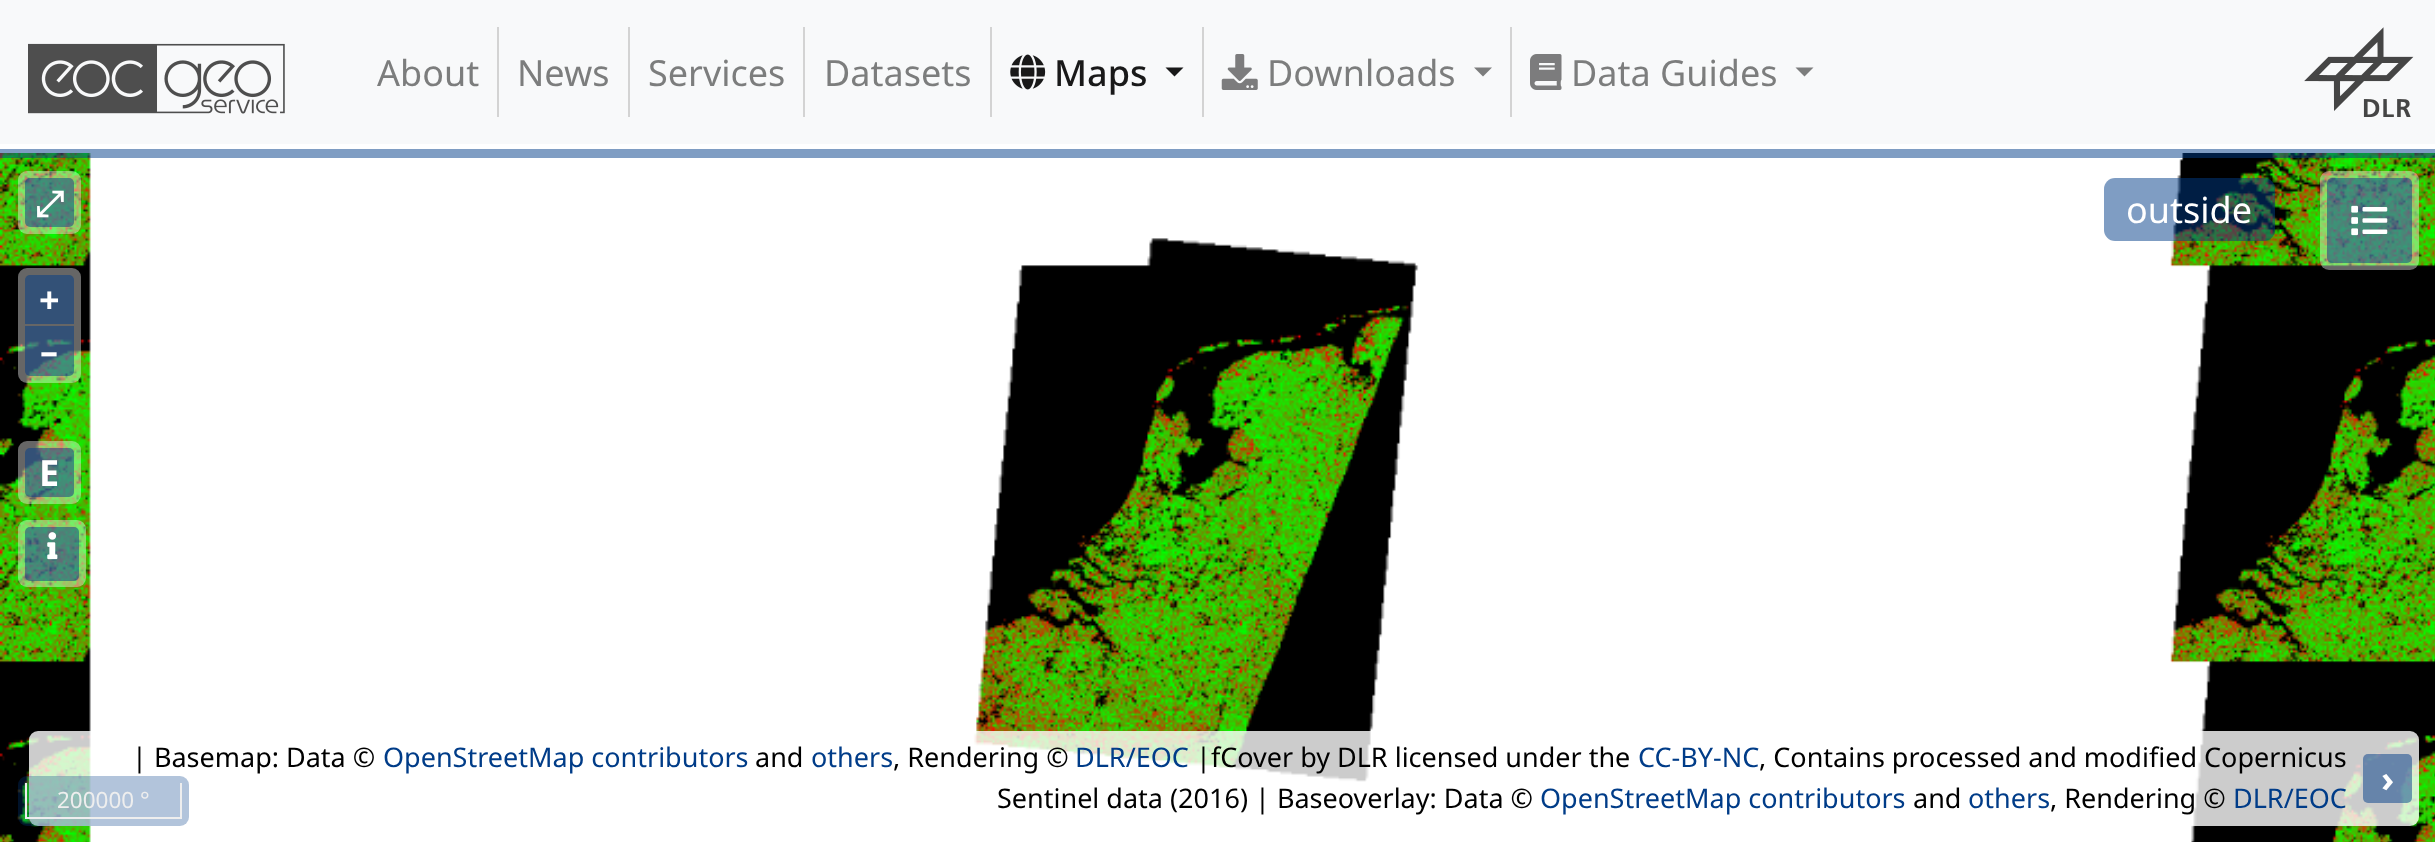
async function draw(canvas) {
  canvas.width = 2435;
  canvas.height = 842;
  const ctx = canvas.getContext('2d');
  ctx.miterLimit = 4;
  ctx.fontKerning = 'normal';
  function label(s, x, y, font, color) {
    ctx.font = font;
    ctx.fillStyle = color;
    ctx.fillText(s, x, y);
  }
  function rect(x, y, w, h, color) {
    ctx.fillStyle = color;
    ctx.fillRect(x, y, w, h);
  }
  function roundedRect(x, y, w, h, r, color) {
    ctx.fillStyle = color;
    ctx.beginPath();
    ctx.roundRect(x, y, w, h, r);
    ctx.fill();
  }
  async function image(src, x, y, w, h) {
    const img = new Image();
    img.src = src;
    await img.decode();
    ctx.drawImage(img, x, y, w, h);
  }
  let path;

  rect(0, 0, 2435, 842, '#fff');
  rect(0, 0, 2435, 144, '#f8f9fa');
  await image('assets/img1.png', 28, 43, 257, 71);
  rect(497, 27, 2, 90, '#d3d3d3');
  label('About', 377, 86, '36px Noto Sans', '#7c7d7d');
  rect(628, 27, 2, 90, '#d3d3d3');
  label('News', 517, 86, '36px Noto Sans', '#7c7d7d');
  rect(803, 27, 2, 90, '#d3d3d3');
  label('Services', 648, 86, '36px Noto Sans', '#7c7d7d');
  rect(990, 27, 2, 90, '#d3d3d3');
  label('Datasets', 824, 86, '36px Noto Sans', '#7c7d7d');
  rect(1202, 27, 2, 90, '#d3d3d3');
  await image('assets/img2.png', 1010, 54, 36, 36);
  label('Maps', 1054, 86, '500 36px Noto Sans', '#191919');
  path = new Path2D('M1165.5 67.5H1183.5L1174.5 76.5Z');
  ctx.fill(path);
  rect(1510, 27, 2, 90, '#d3d3d3');
  await image('assets/img3.png', 1221, 54, 37, 36);
  label('Downloads', 1267, 86, '36px Noto Sans', '#7c7d7d');
  path = new Path2D('M1474 67.5H1492L1483 76.5Z');
  ctx.fill(path);
  await image('assets/img4.png', 1530, 54, 32, 36);
  label('Data Guides', 1571, 86, '36px Noto Sans', '#7c7d7d');
  path = new Path2D('M1795.5 67.5H1813.5L1804.5 76.5Z');
  ctx.fill(path);
  await image('assets/img5.png', 2304, 27, 110, 90);
  await image('assets/img6.png', 0, 153, 2435, 689);
  rect(0, 149, 2435, 9, '#003c8880');
  roundedRect(18, 171, 63, 63, 9, '#ffffff66');
  roundedRect(25, 178, 49, 49, 5, '#003c8880');
  label('⤢', 35, 216, 'bold 36px FreeSerif', '#fff');
  roundedRect(2104, 178, 171, 63, 11, '#003c8880');
  label('outside', 2126, 223, '36px Noto Sans', '#fff');
  roundedRect(2320, 171, 99, 99, 9, '#ffffff66');
  roundedRect(2327, 178, 85, 85, 5, '#003c8880');
  await image('assets/img7.png', 2351, 205, 37, 31);
  roundedRect(18, 268, 63, 115, 9, '#ffffff66');
  ctx.fillStyle = '#335177';
  ctx.beginPath();
  ctx.roundRect(25, 275, 49, 49, [5, 5, 0, 0]);
  ctx.fill();
  label('+', 39, 313, 'bold 36px Noto Sans', '#fff');
  ctx.fillStyle = '#003c8880';
  ctx.beginPath();
  ctx.roundRect(25, 326, 49, 50, [0, 0, 5, 5]);
  ctx.fill();
  label('–', 40, 364, 'bold 36px Noto Sans', '#fff');
  roundedRect(18, 441, 63, 63, 9, '#ffffff66');
  roundedRect(25, 448, 49, 49, 5, '#003c8880');
  label('E', 39, 486, 'bold 36px Noto Sans', '#fff');
  roundedRect(18, 520, 68, 67, 9, '#ffffff66');
  roundedRect(25, 527, 54, 54, 5, '#003c8880');
  await image('assets/img8.png', 47, 532, 11, 28);
  roundedRect(29, 731, 2390, 95, 9, '#ffffffcc');
  roundedRect(18, 776, 171, 50, 9, '#003c884d');
  rect(180, 783, 2, 36, '#eee');
  rect(25, 817, 157, 2, '#eee');
  rect(25, 783, 2, 36, '#eee');
  label('200000 °', 57, 808, '22.5px Noto Sans', '#eee');
  label('| Basemap: Data ©', 132, 767, '27px Noto Sans', '#000');
  label('OpenStreetMap contributors', 383, 767, '27px Noto Sans', '#003c88');
  label('and', 755, 767, '27px Noto Sans', '#000');
  label('others', 811, 767, '27px Noto Sans', '#003c88');
  label(', Rendering ©', 893, 767, '27px Noto Sans', '#000');
  label('DLR/EOC', 1075, 767, '27px Noto Sans', '#003c88');
  label('|fCover by DLR licensed under the', 1196, 767, '27px Noto Sans', '#000');
  label('CC-BY-NC', 1638, 767, '27px Noto Sans', '#003c88');
  label(', Contains processed and modified Copernicus', 1759, 767, '27px Noto Sans', '#000');
  label('Sentinel data (2016) | Baseoverlay: Data ©', 997, 808, '27px Noto Sans', '#000');
  label('OpenStreetMap contributors', 1540, 808, '27px Noto Sans', '#003c88');
  label('and', 1913, 808, '27px Noto Sans', '#000');
  label('others', 1968, 808, '27px Noto Sans', '#003c88');
  label(', Rendering ©', 2050, 808, '27px Noto Sans', '#000');
  label('DLR/EOC', 2233, 808, '27px Noto Sans', '#003c88');
  roundedRect(2363, 754, 49, 49, 5, '#003c8880');
  label('›', 2381, 792, 'bold 36px Noto Sans', '#fff');
}

draw(document.querySelector('canvas'));
